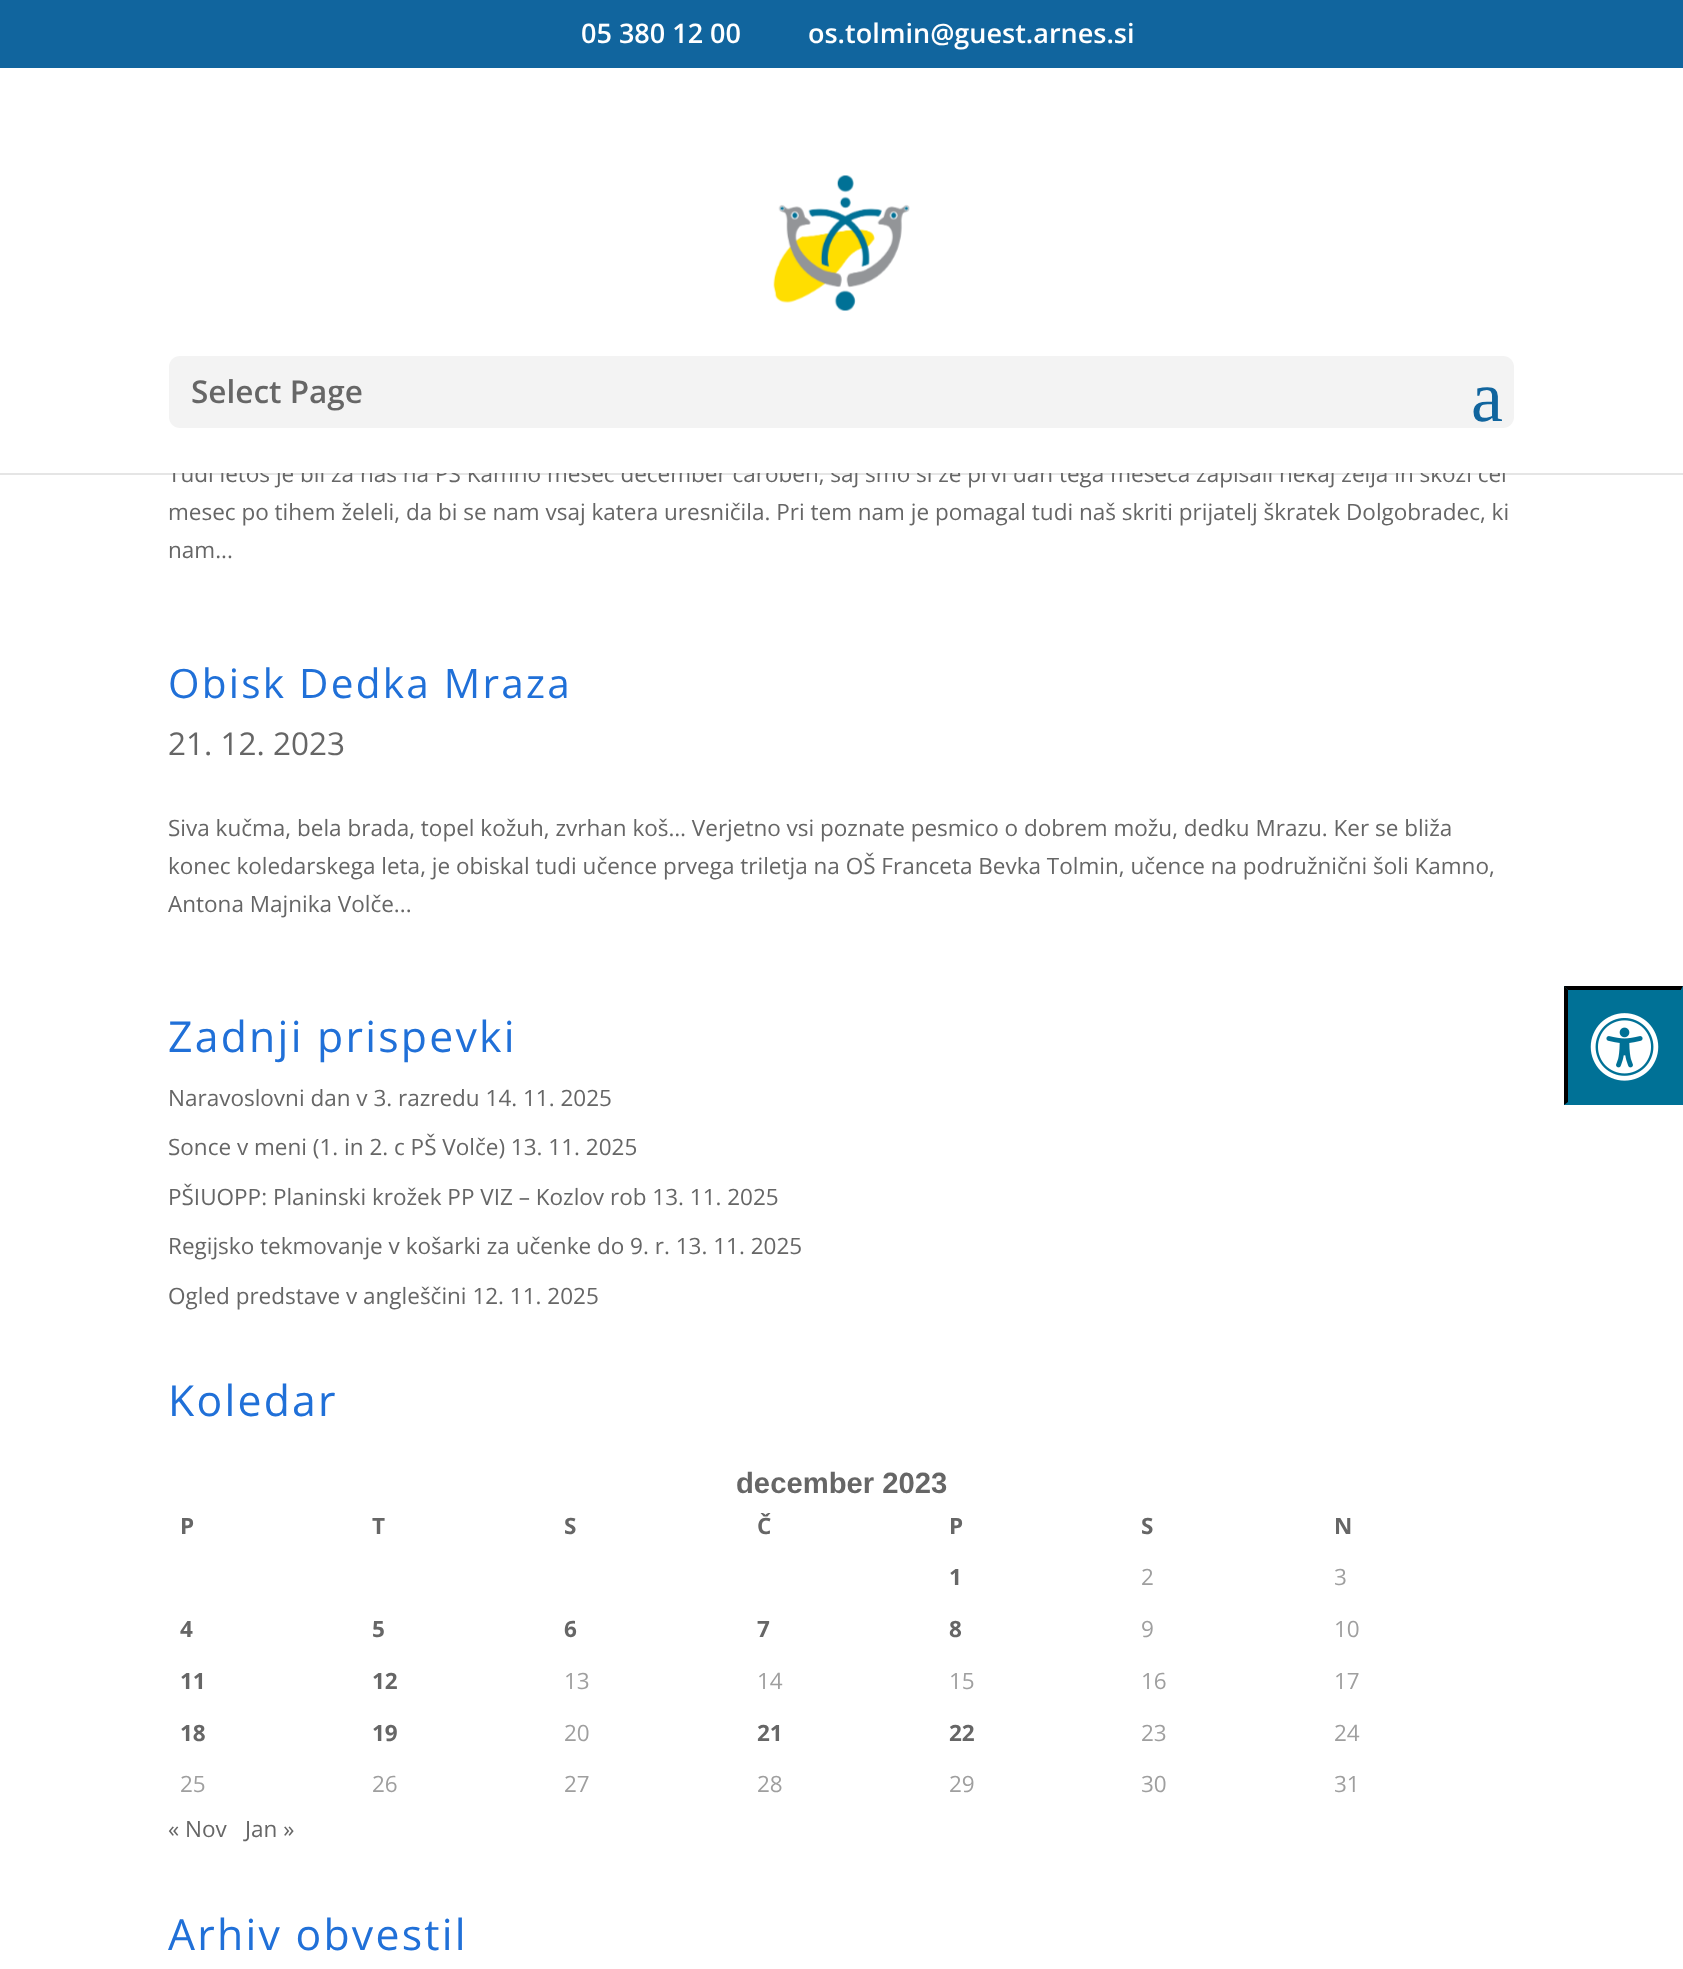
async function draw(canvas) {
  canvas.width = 1683;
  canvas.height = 1969;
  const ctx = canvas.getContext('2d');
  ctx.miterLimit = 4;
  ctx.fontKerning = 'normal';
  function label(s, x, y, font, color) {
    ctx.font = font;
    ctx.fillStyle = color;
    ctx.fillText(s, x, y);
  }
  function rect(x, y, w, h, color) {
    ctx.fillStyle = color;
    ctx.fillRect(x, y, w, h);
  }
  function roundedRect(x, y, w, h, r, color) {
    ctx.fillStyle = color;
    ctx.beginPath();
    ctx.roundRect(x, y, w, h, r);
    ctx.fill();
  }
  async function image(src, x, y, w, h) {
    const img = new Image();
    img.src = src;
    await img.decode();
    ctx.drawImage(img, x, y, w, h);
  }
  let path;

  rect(0, 0, 1683, 1969, '#fff');
  rect(0, 0, 1683, 68, '#11659e');
  label('05 380 12 00', 581, 43, '600 27px Open Sans', '#fff');
  label('os.tolmin@guest.arnes.si', 808, 43, '600 27px Open Sans', '#fff');
  rect(0, 473, 1683, 2, '#0000001a');
  label('Tudi letos je bil za nas na PŠ Kamno mesec december čaroben, saj smo si že prvi dan tega meseca zapisali nekaj želja in skozi cel', 168, 482, '22.5px Open Sans', '#666');
  rect(168, 460, 1338, 13, '#fff');
  await image('assets/img1.png', 773, 175, 137, 136);
  roundedRect(169, 356, 1345, 72, 11, '#f3f3f3');
  label('Select Page', 191, 403, '600 31.5px Open Sans', '#666');
  label('a', 1471, 421, '72px Liberation Serif', '#11659e');
  label('mesec po tihem želeli, da bi se nam vsaj katera uresničila. Pri tem nam je pomagal tudi naš skriti prijatelj škratek Dolgobradec, ki', 168, 520, '22.5px Open Sans', '#666');
  label('nam...', 168, 558, '22.5px Open Sans', '#666');
  ctx.letterSpacing = '2.25px';
  label('Obisk Dedka Mraza', 168, 698, '40.5px Open Sans', '#2070d8');
  ctx.letterSpacing = '0px';
  label('21. 12. 2023', 168, 755, '31.5px Open Sans', '#666');
  label('Siva kučma, bela brada, topel kožuh, zvrhan koš… Verjetno vsi poznate pesmico o dobrem možu, dedku Mrazu. Ker se bliža', 168, 836, '22.5px Open Sans', '#666');
  label('konec koledarskega leta, je obiskal tudi učence prvega triletja na OŠ Franceta Bevka Tolmin, učence na podružnični šoli Kamno,', 168, 874, '22.5px Open Sans', '#666');
  label('Antona Majnika Volče...', 168, 912, '22.5px Open Sans', '#666');
  ctx.letterSpacing = '2.25px';
  label('Zadnji prispevki', 168, 1052, '42.75px Open Sans', '#2070d8');
  ctx.letterSpacing = '0px';
  label('Naravoslovni dan v 3. razredu 14. 11. 2025', 168, 1106, '22.5px Open Sans', '#666');
  label('Sonce v meni (1. in 2. c PŠ Volče) 13. 11. 2025', 168, 1155, '22.5px Open Sans', '#666');
  label('PŠIUOPP: Planinski krožek PP VIZ – Kozlov rob 13. 11. 2025', 168, 1205, '22.5px Open Sans', '#666');
  label('Regijsko tekmovanje v košarki za učenke do 9. r. 13. 11. 2025', 168, 1254, '22.5px Open Sans', '#666');
  label('Ogled predstave v angleščini 12. 11. 2025', 168, 1304, '22.5px Open Sans', '#666');
  ctx.letterSpacing = '2.25px';
  label('Koledar', 168, 1416, '42.75px Open Sans', '#2070d8');
  ctx.letterSpacing = '0px';
  label('december 2023', 736, 1493, 'bold 29.25px Liberation Sans', '#666');
  label('P', 180, 1534, 'bold 22.5px Open Sans', '#666');
  label('T', 372, 1534, 'bold 22.5px Open Sans', '#666');
  label('S', 564, 1534, 'bold 22.5px Open Sans', '#666');
  label('Č', 757, 1534, 'bold 22.5px Open Sans', '#666');
  label('P', 949, 1534, 'bold 22.5px Open Sans', '#666');
  label('S', 1141, 1534, 'bold 22.5px Open Sans', '#666');
  label('N', 1334, 1534, 'bold 22.5px Open Sans', '#666');
  label('1', 949, 1585, 'bold 22.5px Open Sans', '#666');
  label('2', 1141, 1585, '22.5px Open Sans', '#9f9f9f');
  label('3', 1334, 1585, '22.5px Open Sans', '#9f9f9f');
  label('4', 180, 1637, 'bold 22.5px Open Sans', '#666');
  label('5', 372, 1637, 'bold 22.5px Open Sans', '#666');
  label('6', 564, 1637, 'bold 22.5px Open Sans', '#666');
  label('7', 757, 1637, 'bold 22.5px Open Sans', '#666');
  label('8', 949, 1637, 'bold 22.5px Open Sans', '#666');
  label('9', 1141, 1637, '22.5px Open Sans', '#9f9f9f');
  label('10', 1334, 1637, '22.5px Open Sans', '#9f9f9f');
  label('11', 180, 1689, 'bold 22.5px Open Sans', '#666');
  label('12', 372, 1689, 'bold 22.5px Open Sans', '#666');
  label('13', 564, 1689, '22.5px Open Sans', '#9f9f9f');
  label('14', 757, 1689, '22.5px Open Sans', '#9f9f9f');
  label('15', 949, 1689, '22.5px Open Sans', '#9f9f9f');
  label('16', 1141, 1689, '22.5px Open Sans', '#9f9f9f');
  label('17', 1334, 1689, '22.5px Open Sans', '#9f9f9f');
  label('18', 180, 1741, 'bold 22.5px Open Sans', '#666');
  label('19', 372, 1741, 'bold 22.5px Open Sans', '#666');
  label('20', 564, 1741, '22.5px Open Sans', '#9f9f9f');
  label('21', 757, 1741, 'bold 22.5px Open Sans', '#666');
  label('22', 949, 1741, 'bold 22.5px Open Sans', '#666');
  label('23', 1141, 1741, '22.5px Open Sans', '#9f9f9f');
  label('24', 1334, 1741, '22.5px Open Sans', '#9f9f9f');
  label('25', 180, 1792, '22.5px Open Sans', '#9f9f9f');
  label('26', 372, 1792, '22.5px Open Sans', '#9f9f9f');
  label('27', 564, 1792, '22.5px Open Sans', '#9f9f9f');
  label('28', 757, 1792, '22.5px Open Sans', '#9f9f9f');
  label('29', 949, 1792, '22.5px Open Sans', '#9f9f9f');
  label('30', 1141, 1792, '22.5px Open Sans', '#9f9f9f');
  label('31', 1334, 1792, '22.5px Open Sans', '#9f9f9f');
  label('« Nov', 168, 1837, '22.5px Open Sans', '#666');
  label('Jan »', 245, 1837, '22.5px Open Sans', '#666');
  ctx.letterSpacing = '2.25px';
  label('Arhiv obvestil', 168, 1950, '42.75px Open Sans', '#2070d8');
  rect(1564, 986, 119, 119, '#007196');
  ctx.fillStyle = '#000';
  path = new Path2D('M1564 986H1683L1681 990H1568Z');
  ctx.fill(path);
  ctx.fillStyle = '#007196';
  path = new Path2D('M1683 986V1105L1681 1102V990Z');
  ctx.fill(path);
  ctx.fillStyle = '#000';
  path = new Path2D('M1564 1105V986L1568 990V1102Z');
  ctx.fill(path);
  await image('assets/img2.png', 1590, 1013, 69, 68);
}

draw(document.querySelector('canvas'));
